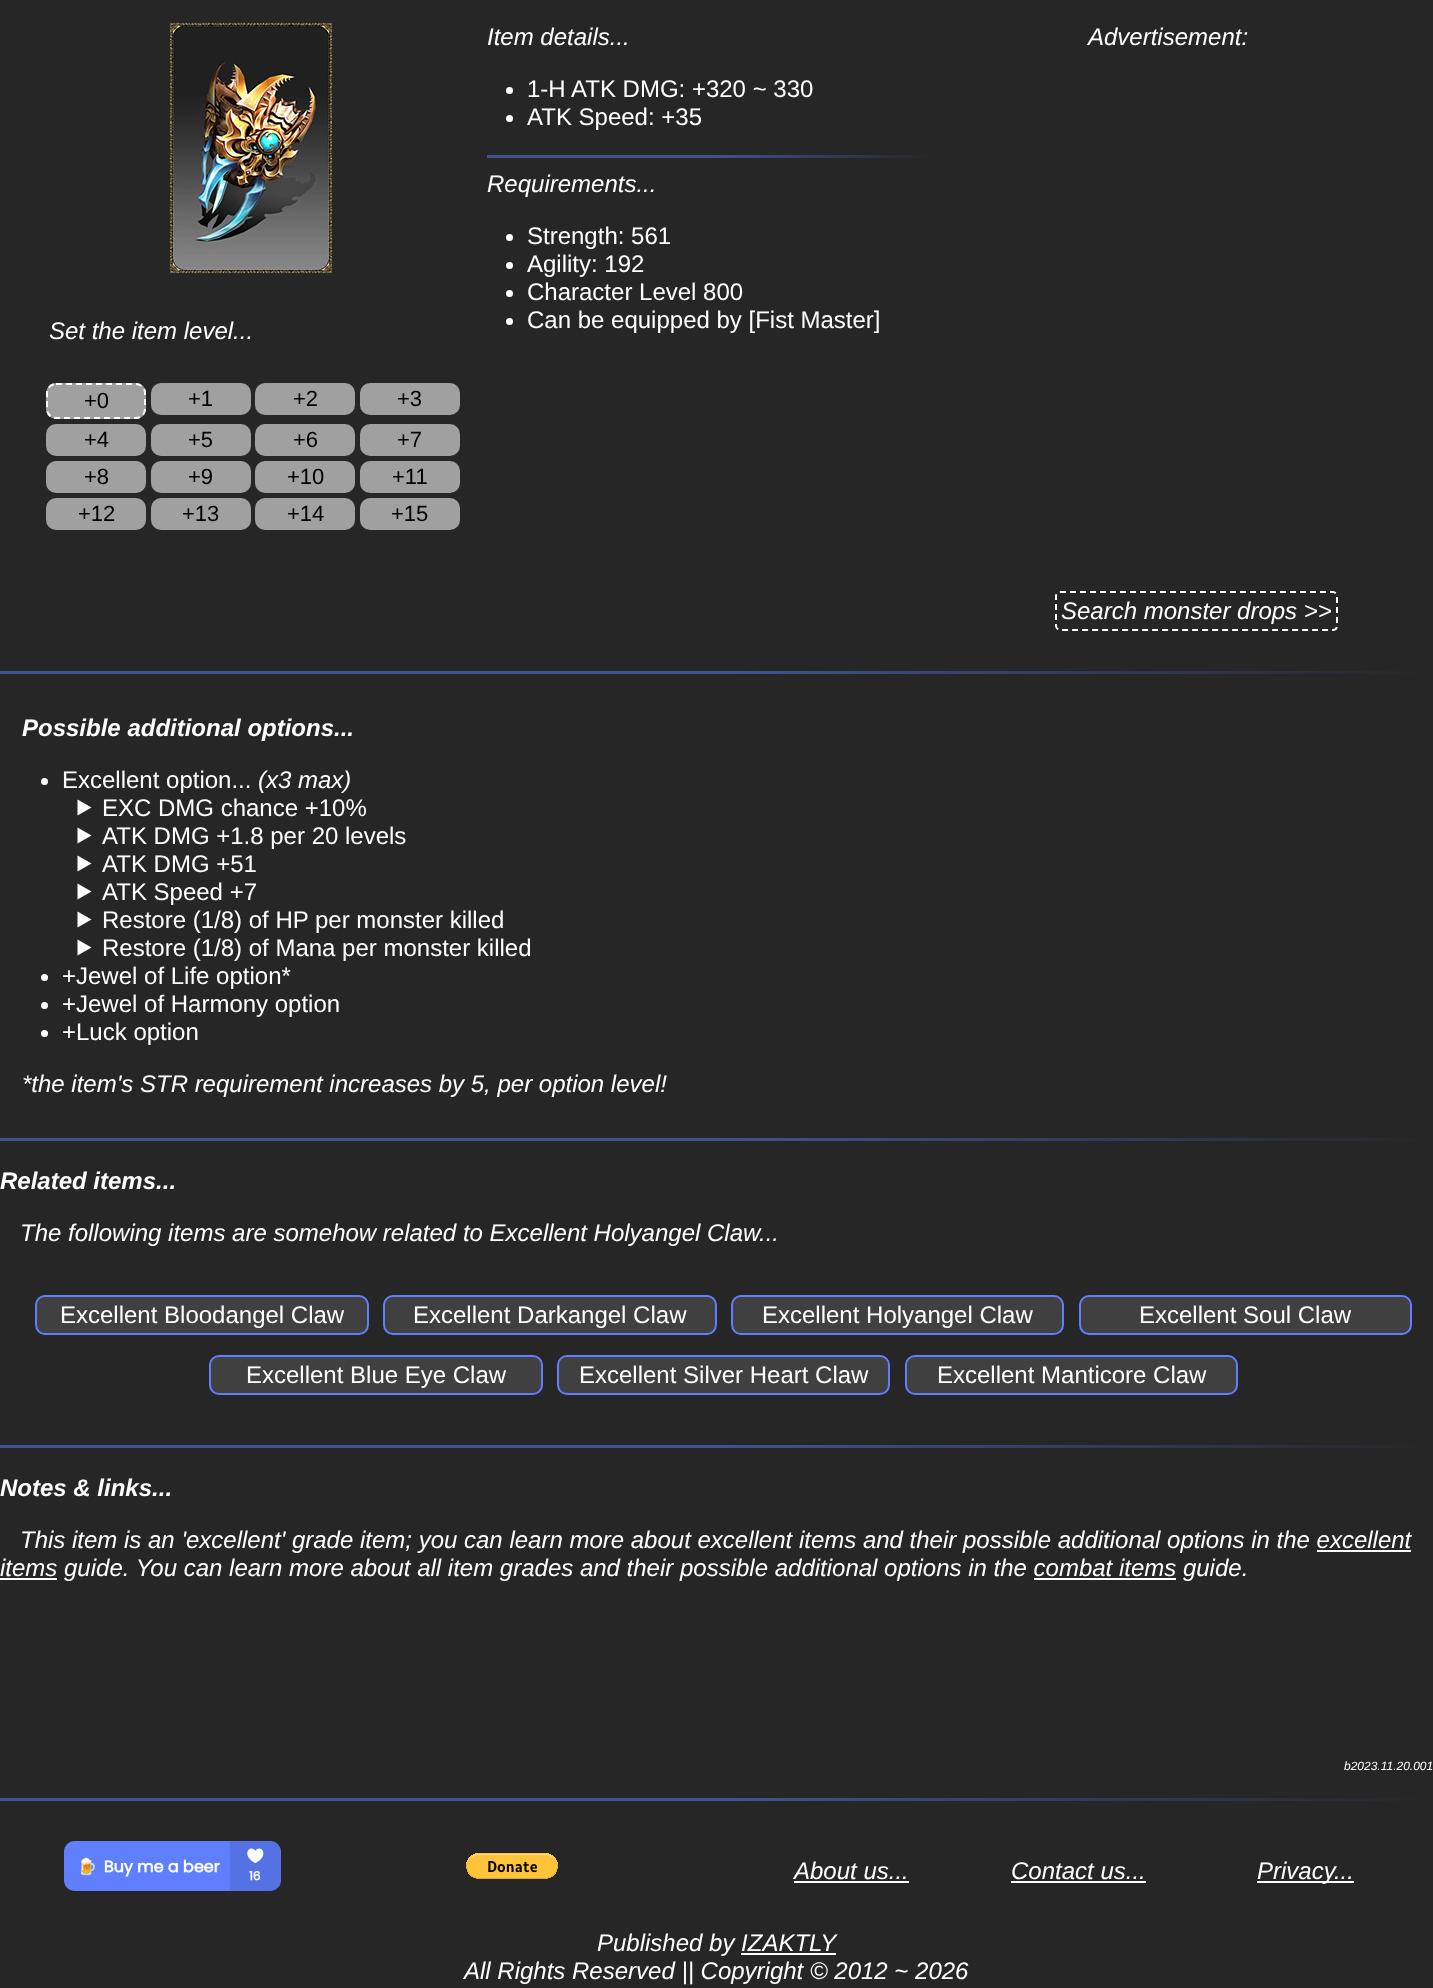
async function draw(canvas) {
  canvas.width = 1433;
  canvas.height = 1988;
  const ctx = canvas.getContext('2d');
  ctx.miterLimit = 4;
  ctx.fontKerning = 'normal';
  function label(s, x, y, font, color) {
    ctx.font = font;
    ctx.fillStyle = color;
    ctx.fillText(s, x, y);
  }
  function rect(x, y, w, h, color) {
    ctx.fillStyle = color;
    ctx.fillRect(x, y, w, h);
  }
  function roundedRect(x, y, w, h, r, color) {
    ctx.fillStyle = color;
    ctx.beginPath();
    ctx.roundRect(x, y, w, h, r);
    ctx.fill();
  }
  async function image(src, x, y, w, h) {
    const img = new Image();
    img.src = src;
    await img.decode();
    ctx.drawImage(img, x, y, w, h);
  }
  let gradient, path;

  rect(0, 0, 1433, 1988, '#262626');
  label('Item details...', 487, 45, 'italic 24px Liberation Sans', '#fff');
  ctx.beginPath();
  ctx.arc(509.5, 90.5, 3.5, 0, 2 * Math.PI);
  ctx.fill();
  label('1-H ATK DMG: +320 ~ 330', 527, 97, '24px Liberation Sans', '#fff');
  ctx.beginPath();
  ctx.arc(509.5, 118.5, 3.5, 0, 2 * Math.PI);
  ctx.fill();
  label('ATK Speed: +35', 527, 125, '24px Liberation Sans', '#fff');
  gradient = ctx.createLinearGradient(487, 157, 931, 157);
  gradient.addColorStop(0, '#435392');
  gradient.addColorStop(0.5, '#435392');
  gradient.addColorStop(1, '#262626');
  ctx.fillStyle = gradient;
  ctx.fillRect(487, 155, 444, 3);
  label('Requirements...', 487, 192, 'italic 24px Liberation Sans', '#fff');
  ctx.beginPath();
  ctx.arc(509.5, 237.5, 3.5, 0, 2 * Math.PI);
  ctx.fill();
  label('Strength: 561', 527, 244, '24px Liberation Sans', '#fff');
  ctx.beginPath();
  ctx.arc(509.5, 265.5, 3.5, 0, 2 * Math.PI);
  ctx.fill();
  label('Agility: 192', 527, 272, '24px Liberation Sans', '#fff');
  ctx.beginPath();
  ctx.arc(509.5, 293.5, 3.5, 0, 2 * Math.PI);
  ctx.fill();
  label('Character Level 800', 527, 300, '24px Liberation Sans', '#fff');
  ctx.beginPath();
  ctx.arc(509.5, 321.5, 3.5, 0, 2 * Math.PI);
  ctx.fill();
  label('Can be equipped by [Fist Master]', 527, 328, '24px Liberation Sans', '#fff');
  label('Advertisement:', 1088, 45, 'italic 24px Liberation Sans', '#fff');
  await image('assets/img1.png', 170, 23, 162, 250);
  label('Set the item level...', 49, 339, 'italic 24px Liberation Sans', '#fff');
  roundedRect(46, 383, 100, 36, 10, '#a0a0a0');
  path = new Path2D('M56 384H136C141 384 145 388 145 393V409C145 414 141 418 136 418H56C51 418 47 414 47 409V393C47 388 51 384 56 384Z');
  ctx.strokeStyle = '#fff';
  ctx.lineWidth = 2;
  ctx.setLineDash([6, 4]);
  ctx.stroke(path);
  label('+0', 84, 408, '22px Liberation Sans', '#000');
  roundedRect(151, 383, 100, 32, 10, '#a0a0a0');
  label('+1', 188, 406, '22px Liberation Sans', '#000');
  roundedRect(255, 383, 100, 32, 10, '#a0a0a0');
  label('+2', 293, 406, '22px Liberation Sans', '#000');
  roundedRect(360, 383, 100, 32, 10, '#a0a0a0');
  label('+3', 397, 406, '22px Liberation Sans', '#000');
  roundedRect(46, 424, 100, 32, 10, '#a0a0a0');
  label('+4', 84, 447, '22px Liberation Sans', '#000');
  roundedRect(151, 424, 100, 32, 10, '#a0a0a0');
  label('+5', 188, 447, '22px Liberation Sans', '#000');
  roundedRect(255, 424, 100, 32, 10, '#a0a0a0');
  label('+6', 293, 447, '22px Liberation Sans', '#000');
  roundedRect(360, 424, 100, 32, 10, '#a0a0a0');
  label('+7', 397, 447, '22px Liberation Sans', '#000');
  roundedRect(46, 461, 100, 32, 10, '#a0a0a0');
  label('+8', 84, 484, '22px Liberation Sans', '#000');
  roundedRect(151, 461, 100, 32, 10, '#a0a0a0');
  label('+9', 188, 484, '22px Liberation Sans', '#000');
  roundedRect(255, 461, 100, 32, 10, '#a0a0a0');
  label('+10', 287, 484, '22px Liberation Sans', '#000');
  roundedRect(360, 461, 100, 32, 10, '#a0a0a0');
  label('+11', 392, 484, '22px Liberation Sans', '#000');
  roundedRect(46, 498, 100, 32, 10, '#a0a0a0');
  label('+12', 78, 521, '22px Liberation Sans', '#000');
  roundedRect(151, 498, 100, 32, 10, '#a0a0a0');
  label('+13', 182, 521, '22px Liberation Sans', '#000');
  roundedRect(255, 498, 100, 32, 10, '#a0a0a0');
  label('+14', 287, 521, '22px Liberation Sans', '#000');
  roundedRect(360, 498, 100, 32, 10, '#a0a0a0');
  label('+15', 391, 521, '22px Liberation Sans', '#000');
  path = new Path2D('M1060 592H1333C1335 592 1337 594 1337 596V626C1337 628 1335 630 1333 630H1060C1058 630 1056 628 1056 626V596C1056 594 1058 592 1060 592Z');
  ctx.stroke(path);
  label('Search monster drops >>', 1061, 619, 'italic 24px Liberation Sans', '#fff');
  gradient = ctx.createLinearGradient(0, 673, 1433, 673);
  gradient.addColorStop(0, '#435392');
  gradient.addColorStop(0.5, '#435392');
  gradient.addColorStop(1, '#262626');
  ctx.fillStyle = gradient;
  ctx.fillRect(0, 671, 1416, 3);
  label('Possible additional options...', 22, 736, 'italic bold 24px Liberation Sans', '#fff');
  ctx.beginPath();
  ctx.arc(44.5, 781.5, 3.5, 0, 2 * Math.PI);
  ctx.fill();
  label('Excellent option...', 62, 788, '24px Liberation Sans', '#fff');
  label('(x3 max)', 258, 788, 'italic 24px Liberation Sans', '#fff');
  path = new Path2D('M77.5 799.5L91.5 807.5L77.5 815.5Z');
  ctx.fill(path);
  label('EXC DMG chance +10%', 102, 816, '24px Liberation Sans', '#fff');
  path = new Path2D('M77.5 827.5L91.5 835.5L77.5 843.5Z');
  ctx.fill(path);
  label('ATK DMG +1.8 per 20 levels', 102, 844, '24px Liberation Sans', '#fff');
  path = new Path2D('M77.5 855.5L91.5 863.5L77.5 871.5Z');
  ctx.fill(path);
  label('ATK DMG +51', 102, 872, '24px Liberation Sans', '#fff');
  path = new Path2D('M77.5 883.5L91.5 891.5L77.5 899.5Z');
  ctx.fill(path);
  label('ATK Speed +7', 102, 900, '24px Liberation Sans', '#fff');
  path = new Path2D('M77.5 911.5L91.5 919.5L77.5 927.5Z');
  ctx.fill(path);
  label('Restore (1/8) of HP per monster killed', 102, 928, '24px Liberation Sans', '#fff');
  path = new Path2D('M77.5 939.5L91.5 947.5L77.5 955.5Z');
  ctx.fill(path);
  label('Restore (1/8) of Mana per monster killed', 102, 956, '24px Liberation Sans', '#fff');
  ctx.beginPath();
  ctx.arc(44.5, 977.5, 3.5, 0, 2 * Math.PI);
  ctx.fill();
  label('+Jewel of Life option*', 62, 984, '24px Liberation Sans', '#fff');
  ctx.beginPath();
  ctx.arc(44.5, 1005.5, 3.5, 0, 2 * Math.PI);
  ctx.fill();
  label('+Jewel of Harmony option', 62, 1012, '24px Liberation Sans', '#fff');
  ctx.beginPath();
  ctx.arc(44.5, 1033.5, 3.5, 0, 2 * Math.PI);
  ctx.fill();
  label('+Luck option', 62, 1040, '24px Liberation Sans', '#fff');
  label('*the item\'s STR requirement increases by 5, per option level!', 22, 1092, 'italic 24px Liberation Sans', '#fff');
  gradient = ctx.createLinearGradient(0, 1140, 1433, 1140);
  gradient.addColorStop(0, '#435392');
  gradient.addColorStop(0.5, '#435392');
  gradient.addColorStop(1, '#262626');
  ctx.fillStyle = gradient;
  ctx.fillRect(0, 1138, 1416, 3);
  label('Related items...', 0, 1189, 'italic bold 24px Liberation Sans', '#fff');
  label('The following items are somehow related to Excellent Holyangel Claw...', 20, 1241, 'italic 24px Liberation Sans', '#fff');
  ctx.fillStyle = '#404040';
  ctx.beginPath();
  ctx.roundRect(36, 1296, 332, 38, 9);
  ctx.fill();
  ctx.strokeStyle = '#607ffe';
  ctx.setLineDash([]);
  ctx.stroke();
  label('Excellent Bloodangel Claw', 60, 1323, '24px Liberation Sans', '#fff');
  ctx.fillStyle = '#404040';
  ctx.beginPath();
  ctx.roundRect(384, 1296, 332, 38, 9);
  ctx.fill();
  ctx.stroke();
  label('Excellent Darkangel Claw', 413, 1323, '24px Liberation Sans', '#fff');
  ctx.fillStyle = '#404040';
  ctx.beginPath();
  ctx.roundRect(732, 1296, 331, 38, 9);
  ctx.fill();
  ctx.stroke();
  label('Excellent Holyangel Claw', 762, 1323, '24px Liberation Sans', '#fff');
  ctx.fillStyle = '#404040';
  ctx.beginPath();
  ctx.roundRect(1080, 1296, 331, 38, 9);
  ctx.fill();
  ctx.stroke();
  label('Excellent Soul Claw', 1139, 1323, '24px Liberation Sans', '#fff');
  ctx.fillStyle = '#404040';
  ctx.beginPath();
  ctx.roundRect(210, 1356, 332, 38, 9);
  ctx.fill();
  ctx.stroke();
  label('Excellent Blue Eye Claw', 246, 1383, '24px Liberation Sans', '#fff');
  ctx.fillStyle = '#404040';
  ctx.beginPath();
  ctx.roundRect(558, 1356, 331, 38, 9);
  ctx.fill();
  ctx.stroke();
  label('Excellent Silver Heart Claw', 579, 1383, '24px Liberation Sans', '#fff');
  ctx.fillStyle = '#404040';
  ctx.beginPath();
  ctx.roundRect(906, 1356, 331, 38, 9);
  ctx.fill();
  ctx.stroke();
  label('Excellent Manticore Claw', 937, 1383, '24px Liberation Sans', '#fff');
  gradient = ctx.createLinearGradient(0, 1447, 1433, 1447);
  gradient.addColorStop(0, '#435392');
  gradient.addColorStop(0.5, '#435392');
  gradient.addColorStop(1, '#262626');
  ctx.fillStyle = gradient;
  ctx.fillRect(0, 1445, 1416, 3);
  label('Notes & links...', 0, 1496, 'italic bold 24px Liberation Sans', '#fff');
  label('This item is an \'excellent\' grade item; you can learn more about excellent items and their possible additional options in the excellent', 20, 1548, 'italic 24px Liberation Sans', '#fff');
  rect(1317, 1550, 94, 2, '#fff');
  rect(0, 1578, 57, 2, '#fff');
  label('items guide. You can learn more about all item grades and their possible additional options in the combat items guide.', 0, 1576, 'italic 24px Liberation Sans', '#fff');
  rect(1034, 1578, 142, 2, '#fff');
  label('b2023.11.20.001', 1344, 1770, 'italic 12px Liberation Sans', '#fff');
  gradient = ctx.createLinearGradient(0, 1800, 1433, 1800);
  gradient.addColorStop(0, '#435392');
  gradient.addColorStop(0.5, '#435392');
  gradient.addColorStop(1, '#262626');
  ctx.fillStyle = gradient;
  ctx.fillRect(0, 1798, 1416, 3);
  await image('assets/img2.png', 64, 1841, 217, 50);
  await image('assets/img3.png', 466, 1853, 92, 26);
  label('About us...', 794, 1879, 'italic 24px Liberation Sans', '#fff');
  rect(794, 1881, 115, 2, '#fff');
  label('Contact us...', 1011, 1879, 'italic 24px Liberation Sans', '#fff');
  rect(1011, 1881, 135, 2, '#fff');
  rect(1257, 1881, 97, 2, '#fff');
  label('Privacy...', 1257, 1879, 'italic 24px Liberation Sans', '#fff');
  label('Published by IZAKTLY', 597, 1951, 'italic 24px Liberation Sans', '#fff');
  rect(741, 1953, 95, 2, '#fff');
  label('All Rights Reserved || Copyright © 2012 ~ 2026', 464, 1979, 'italic 24px Liberation Sans', '#fff');
}

draw(document.querySelector('canvas'));
